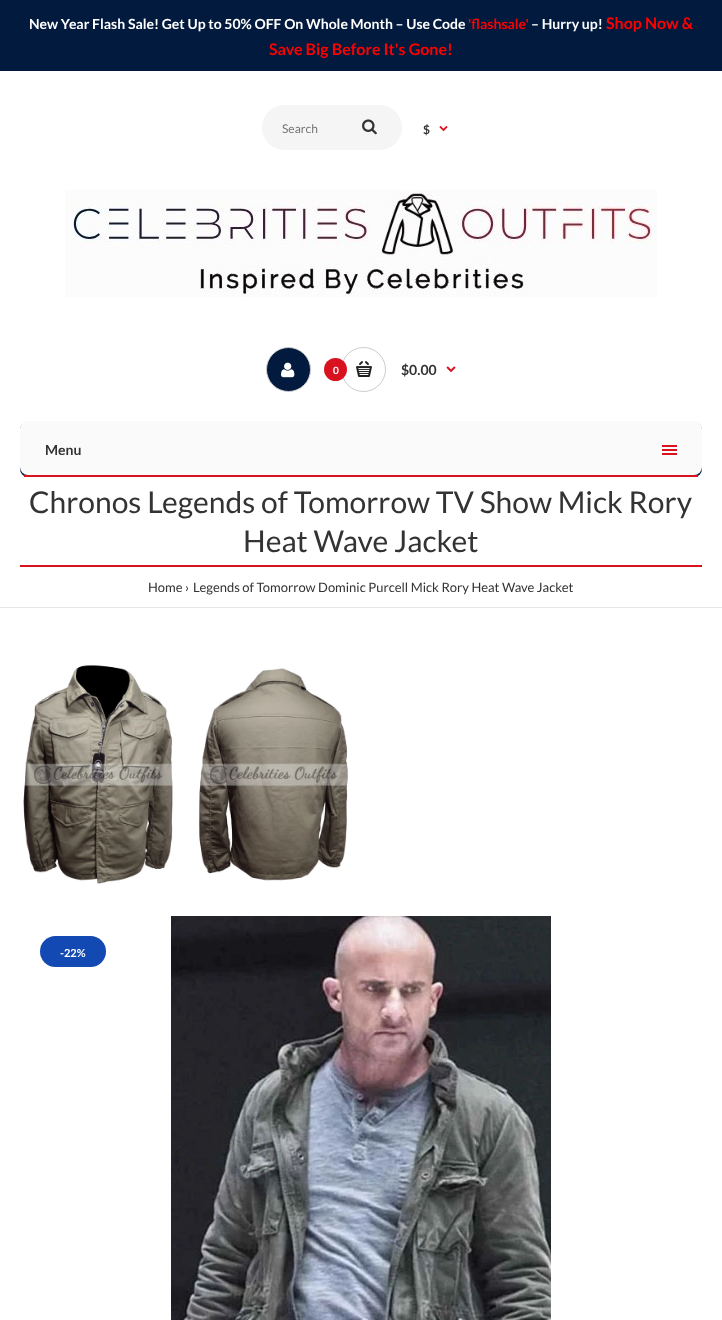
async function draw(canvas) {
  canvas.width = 722;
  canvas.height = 1320;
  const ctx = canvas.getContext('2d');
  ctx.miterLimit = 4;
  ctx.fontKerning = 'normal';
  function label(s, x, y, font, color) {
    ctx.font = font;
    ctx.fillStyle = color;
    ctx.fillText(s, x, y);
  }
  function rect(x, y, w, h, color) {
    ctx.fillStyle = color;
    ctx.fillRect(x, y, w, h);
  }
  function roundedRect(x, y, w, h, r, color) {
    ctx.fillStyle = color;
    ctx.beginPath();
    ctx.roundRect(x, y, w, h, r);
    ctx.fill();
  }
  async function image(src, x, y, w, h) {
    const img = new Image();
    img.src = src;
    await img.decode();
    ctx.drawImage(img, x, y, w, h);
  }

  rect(0, 0, 722, 1320, '#fff');
  rect(0, 0, 722, 71, '#021a3d');
  label('New Year Flash Sale! Get Up to 50% OFF On Whole Month – Use Code', 29, 29, 'bold 14px Lato', '#fff');
  label('\'flashsale\'', 468, 29, 'bold 14px Lato', '#f00');
  label('– Hurry up!', 531, 29, 'bold 14px Lato', '#fff');
  label('Shop Now &', 606, 29, 'bold 16px Lato', '#f00');
  label('Save Big Before It\'s Gone!', 269, 55, 'bold 16px Lato', '#f00');
  roundedRect(262, 105, 140, 45, 22.5, '#f5f5f5');
  label('Search', 282, 133, '12px Lato', '#757575');
  await image('assets/img1.png', 362, 119, 15, 16);
  label('$', 423, 134, 'bold 12px Lato', '#333');
  await image('assets/img2.png', 439, 126, 9, 6);
  await image('assets/img3.png', 65, 190, 592, 107);
  ctx.fillStyle = '#021a3d';
  ctx.beginPath();
  ctx.arc(288.5, 369.5, 22, 0, 2 * Math.PI);
  ctx.fill();
  ctx.strokeStyle = '#ccc';
  ctx.stroke();
  await image('assets/img4.png', 281, 362, 14, 16);
  ctx.beginPath();
  ctx.arc(363.5, 369.5, 22, 0, 2 * Math.PI);
  ctx.stroke();
  ctx.fillStyle = '#d9121f';
  ctx.beginPath();
  ctx.arc(335.5, 369.5, 11.5, 0, 2 * Math.PI);
  ctx.fill();
  label('0', 333, 374, 'bold 10px Lato', '#fff');
  await image('assets/img5.png', 356, 361, 16, 16);
  label('$0.00', 401, 375, 'bold 14px Lato', '#333');
  await image('assets/img6.png', 446, 366, 10, 7);
  roundedRect(20, 422, 682, 55, 8, '#021a3d');
  rect(24, 475, 674, 2, '#d9121f');
  roundedRect(20, 421, 682, 54, 8, '#fafafa');
  label('Menu', 45, 455, 'bold 14px Lato', '#333');
  rect(662, 445, 15, 2, '#d9121f');
  rect(662, 449, 15, 2, '#d9121f');
  rect(662, 453, 15, 2, '#d9121f');
  rect(0, 607, 722, 1, '#e6e6e6');
  rect(20, 565, 682, 2, '#d9121f');
  label('Chronos Legends of Tomorrow TV Show Mick Rory', 29, 513, '30px Lato', '#333');
  label('Heat Wave Jacket', 243, 552, '30px Lato', '#333');
  label('Home ›', 148, 592, '13px Lato', '#333');
  label('Legends of Tomorrow Dominic Purcell Mick Rory Heat Wave Jacket', 193, 592, '13px Lato', '#333');
  await image('assets/img7.png', 23, 665, 150, 219);
  await image('assets/img8.png', 199, 668, 149, 213);
  roundedRect(40, 936, 66, 31, 15.5, '#1349b2');
  label('-22%', 60, 957, 'bold 11px Lato', '#fff');
  await image('assets/img9.png', 171, 916, 380, 404);
}

draw(document.querySelector('canvas'));
